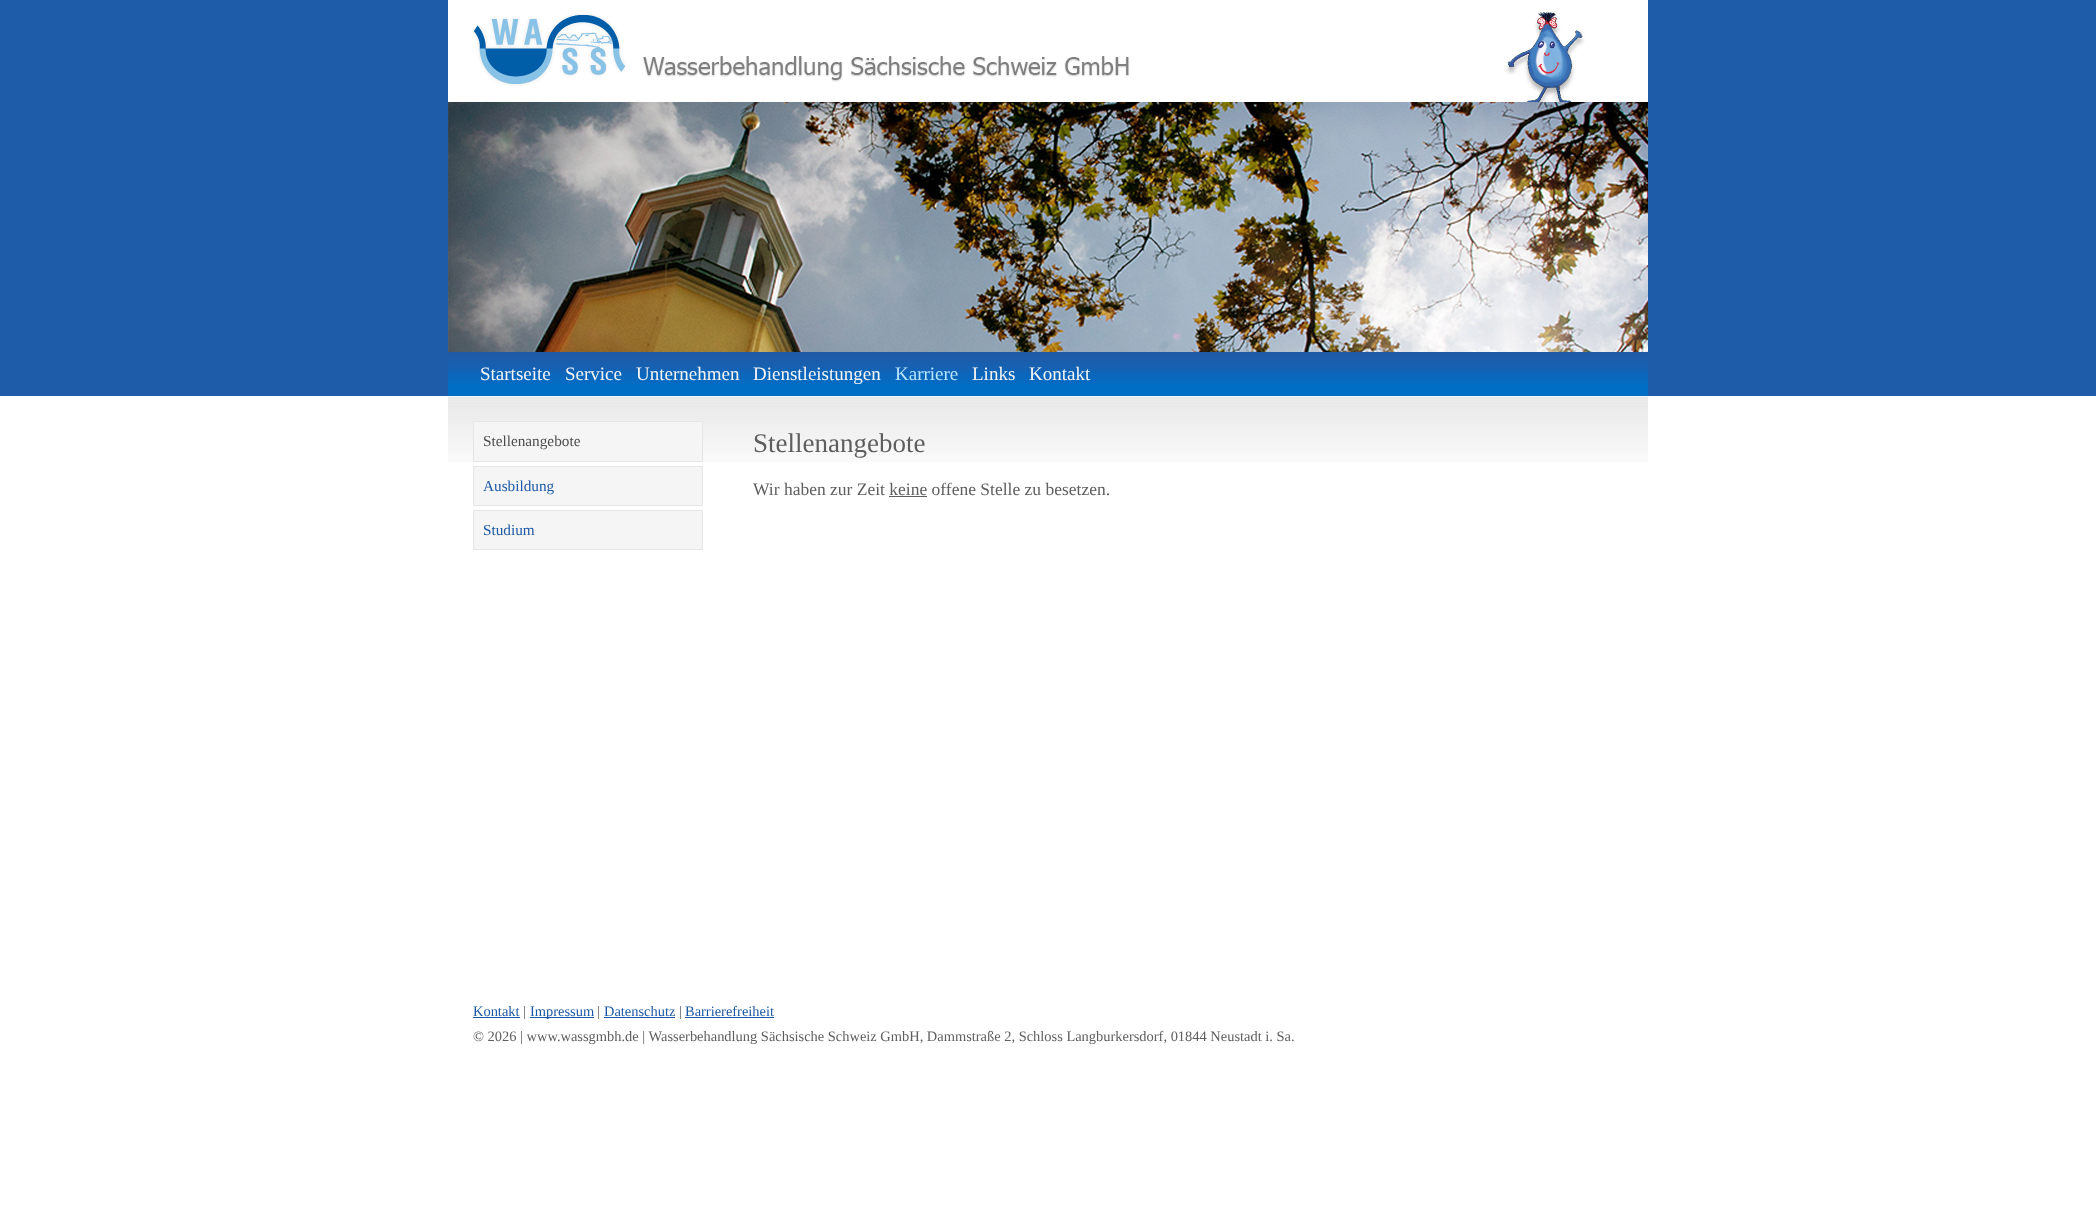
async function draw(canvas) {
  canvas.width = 2096;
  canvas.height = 1232;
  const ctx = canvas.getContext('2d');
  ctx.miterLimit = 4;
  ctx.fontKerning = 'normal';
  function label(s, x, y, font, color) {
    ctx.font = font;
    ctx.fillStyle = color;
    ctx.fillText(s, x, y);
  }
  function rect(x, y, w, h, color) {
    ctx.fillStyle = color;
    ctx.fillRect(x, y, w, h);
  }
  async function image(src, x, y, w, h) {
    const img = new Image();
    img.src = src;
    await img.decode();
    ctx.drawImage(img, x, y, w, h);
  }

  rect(0, 0, 2096, 1232, '#fff');
  rect(0, 0, 2096, 396, '#1e5ca9');
  await image('assets/img1.png', 448, 0, 1200, 102);
  await image('assets/img2.png', 448, 102, 1200, 250);
  rect(448, 384, 1200, 12, '#016ec6');
  await image('assets/img3.png', 448, 352, 1200, 32);
  label('Startseite', 480, 380, '19px Liberation Serif', '#f5f5f5');
  label('Service', 565, 380, '19px Liberation Serif', '#f5f5f5');
  label('Unternehmen', 636, 380, '19px Liberation Serif', '#f5f5f5');
  label('Dienstleistungen', 753, 380, '19px Liberation Serif', '#f5f5f5');
  label('Karriere', 895, 380, '19px Liberation Serif', '#b8e5ff');
  label('Links', 972, 380, '19px Liberation Serif', '#f5f5f5');
  label('Kontakt', 1029, 380, '19px Liberation Serif', '#f5f5f5');
  await image('assets/img4.png', 448, 396, 1200, 66);
  ctx.beginPath();
  ctx.rect(473.5, 421.5, 229, 40);
  ctx.fill();
  ctx.strokeStyle = '#e6e6e6';
  ctx.stroke();
  label('Stellenangebote', 483, 446, '15.25px Liberation Serif', '#4d4d4d');
  ctx.fillStyle = '#f5f5f5';
  ctx.beginPath();
  ctx.rect(473.5, 466.5, 229, 39);
  ctx.fill();
  ctx.stroke();
  label('Ausbildung', 483, 491, '15.25px Liberation Serif', '#1c58a5');
  ctx.fillStyle = '#f5f5f5';
  ctx.beginPath();
  ctx.rect(473.5, 510.5, 229, 39);
  ctx.fill();
  ctx.stroke();
  label('Studium', 483, 535, '15.25px Liberation Serif', '#1c58a5');
  label('Stellenangebote', 753, 452, '27px Liberation Serif', '#5e5e5e');
  label('Wir haben zur Zeit keine offene Stelle zu besetzen.', 753, 495, '17.5px Liberation Serif', '#5e5e5e');
  rect(889, 496, 38, 1, '#5e5e5e');
  label('Kontakt', 473, 1016, '14.45px Liberation Serif', '#1c58a5');
  rect(473, 1017, 47, 1, '#1c58a5');
  label('|', 523, 1016, '14.45px Liberation Serif', '#5e5e5e');
  rect(530, 1017, 64, 1, '#1c58a5');
  label('Impressum', 530, 1016, '14.45px Liberation Serif', '#1c58a5');
  label('|', 597, 1016, '14.45px Liberation Serif', '#5e5e5e');
  label('Datenschutz', 604, 1016, '14.45px Liberation Serif', '#1c58a5');
  rect(604, 1017, 71, 1, '#1c58a5');
  label('|', 679, 1016, '14.45px Liberation Serif', '#5e5e5e');
  label('Barrierefreiheit', 685, 1016, '14.45px Liberation Serif', '#1c58a5');
  rect(685, 1017, 89, 1, '#1c58a5');
  label('© 2026 | www.wassgmbh.de | Wasserbehandlung Sächsische Schweiz GmbH, Dammstraße 2, Schloss Langburkersdorf, 01844 Neustadt i. Sa.', 473, 1041, '14.45px Liberation Serif', '#5e5e5e');
}

draw(document.querySelector('canvas'));
